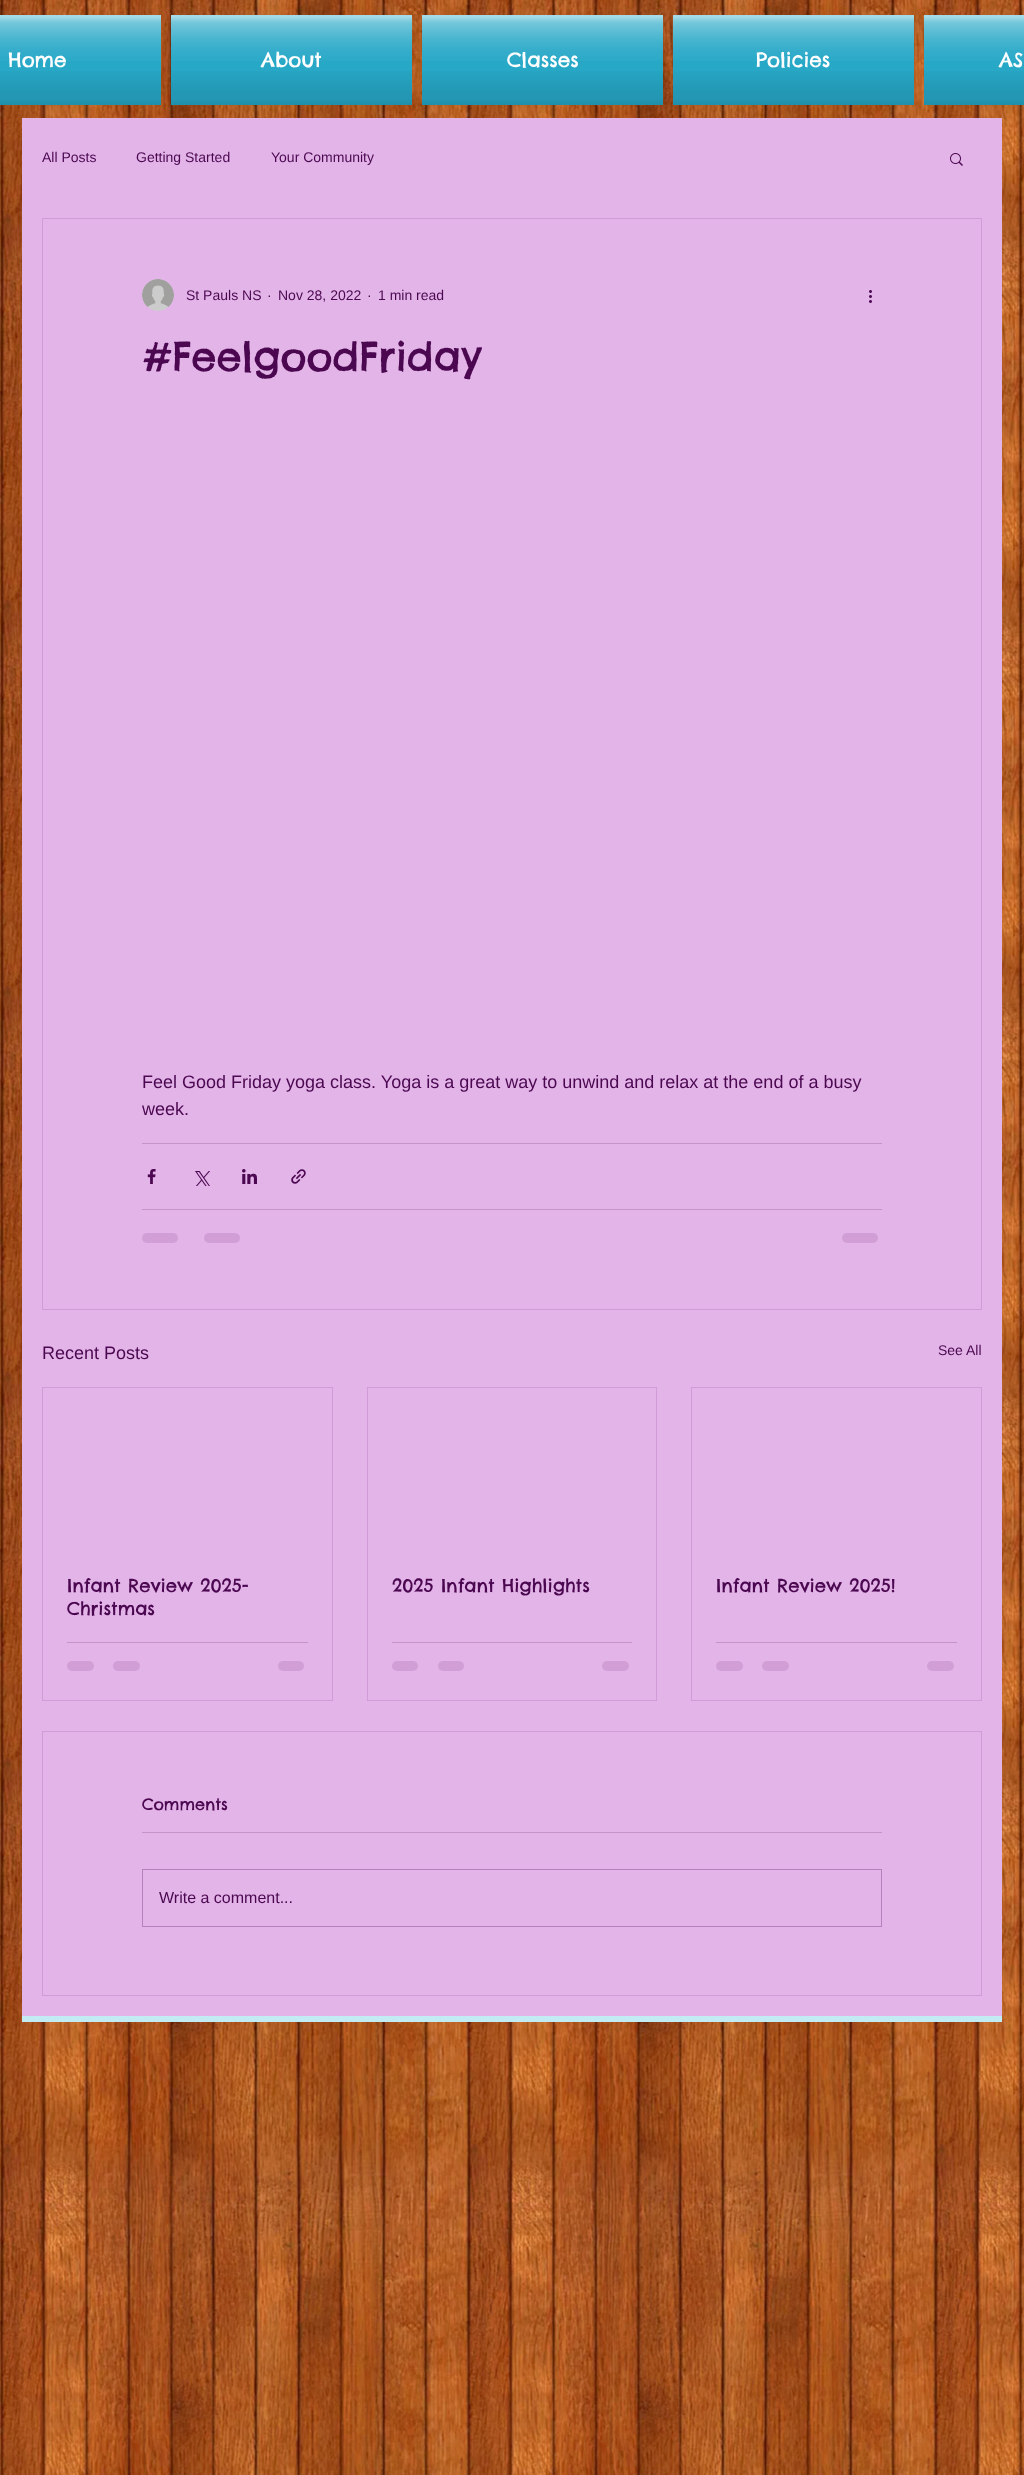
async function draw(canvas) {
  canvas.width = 1024;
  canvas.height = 2475;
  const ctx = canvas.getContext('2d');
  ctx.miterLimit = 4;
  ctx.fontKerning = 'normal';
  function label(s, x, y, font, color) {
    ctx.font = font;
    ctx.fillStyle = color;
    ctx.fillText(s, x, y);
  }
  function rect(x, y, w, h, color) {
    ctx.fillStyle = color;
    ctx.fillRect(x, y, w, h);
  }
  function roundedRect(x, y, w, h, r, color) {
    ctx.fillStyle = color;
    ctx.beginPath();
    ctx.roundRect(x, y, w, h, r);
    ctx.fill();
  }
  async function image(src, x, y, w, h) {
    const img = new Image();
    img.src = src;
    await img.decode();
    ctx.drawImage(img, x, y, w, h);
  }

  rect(0, 0, 1024, 2475, '#fff');
  await image('assets/img1.png', 0, 0, 1024, 2475);
  rect(0, 15, 161, 90, '#27a8c7');
  await image('assets/img2.png', 0, 15, 161, 46);
  await image('assets/img3.png', 0, 71, 161, 34);
  label('Home', 8, 67, '20px Chelsea Market', '#fff');
  rect(171, 15, 241, 90, '#27a8c7');
  await image('assets/img4.png', 171, 15, 241, 46);
  await image('assets/img5.png', 171, 71, 241, 34);
  label('About', 261, 67, '20px Chelsea Market', '#fff');
  rect(422, 15, 241, 90, '#27a8c7');
  await image('assets/img4.png', 422, 15, 241, 46);
  await image('assets/img5.png', 422, 71, 241, 34);
  label('Classes', 507, 67, '20px Chelsea Market', '#fff');
  rect(673, 15, 241, 90, '#27a8c7');
  await image('assets/img4.png', 673, 15, 241, 46);
  await image('assets/img5.png', 673, 71, 241, 34);
  label('Policies', 756, 67, '20px Chelsea Market', '#fff');
  rect(924, 15, 100, 90, '#27a8c7');
  await image('assets/img6.png', 924, 15, 100, 46);
  await image('assets/img7.png', 924, 71, 100, 34);
  label('AS', 999, 67, '20px Chelsea Market', '#fff');
  rect(22, 118, 980, 1898, '#e3b4e8');
  label('All Posts', 42, 162, '14px Liberation Sans', '#4b0851');
  label('Getting Started', 136, 162, '14px Liberation Sans', '#4b0851');
  label('Your Community', 271, 162, '14px Liberation Sans', '#4b0851');
  await image('assets/img8.png', 950, 153, 13, 13);
  ctx.strokeStyle = '#d19bd7';
  ctx.strokeRect(42.5, 218.5, 939, 1091);
  await image('assets/img9.png', 142, 279, 32, 32);
  label('St Pauls NS', 186, 300, '14px Liberation Sans', '#4b0851');
  label('·', 267, 300, '14px Liberation Sans', '#4b0851');
  label('Nov 28, 2022', 278, 300, '14px Liberation Sans', '#4b0851');
  label('·', 367, 300, '14px Liberation Sans', '#4b0851');
  label('1 min read', 378, 300, '14px Liberation Sans', '#4b0851');
  await image('assets/img10.png', 869, 290, 3, 13);
  label('#FeelgoodFriday', 142, 371, '40px Chelsea Market', '#4b0851');
  label('Feel Good Friday yoga class. Yoga is a great way to unwind and relax at the end of a busy', 142, 1088, '18px Liberation Sans', '#4b0851');
  label('week.', 142, 1115, '18px Liberation Sans', '#4b0851');
  rect(142, 1143, 740, 1, '#c592ca');
  await image('assets/img11.png', 147, 1169, 9, 15);
  await image('assets/img12.png', 195, 1171, 15, 15);
  await image('assets/img13.png', 242, 1169, 15, 15);
  await image('assets/img14.png', 291, 1169, 15, 15);
  rect(142, 1209, 740, 1, '#c592ca');
  roundedRect(142, 1233, 36, 10, 5, '#d19fd6');
  roundedRect(204, 1233, 36, 10, 5, '#d19fd6');
  roundedRect(842, 1233, 36, 10, 5, '#d19fd6');
  label('Recent Posts', 42, 1359, '18px Liberation Sans', '#4b0851');
  label('See All', 938, 1355, '14px Liberation Sans', '#4b0851');
  ctx.strokeRect(42.5, 1387.5, 290, 313);
  label('Infant Review 2025-', 67, 1592, '18px Chelsea Market', '#4b0851');
  label('Christmas', 67, 1615, '18px Chelsea Market', '#4b0851');
  rect(67, 1642, 241, 1, '#c592ca');
  roundedRect(67, 1661, 27, 10, 5, '#d19fd6');
  roundedRect(113, 1661, 27, 10, 5, '#d19fd6');
  roundedRect(278, 1661, 26, 10, 5, '#d19fd6');
  ctx.strokeRect(367.5, 1387.5, 289, 313);
  label('2025 Infant Highlights', 392, 1592, '18px Chelsea Market', '#4b0851');
  rect(392, 1642, 240, 1, '#c592ca');
  roundedRect(392, 1661, 26, 10, 5, '#d19fd6');
  roundedRect(438, 1661, 26, 10, 5, '#d19fd6');
  roundedRect(602, 1661, 27, 10, 5, '#d19fd6');
  ctx.strokeRect(691.5, 1387.5, 290, 313);
  label('Infant Review 2025!', 716, 1592, '18px Chelsea Market', '#4b0851');
  rect(716, 1642, 241, 1, '#c592ca');
  roundedRect(716, 1661, 27, 10, 5, '#d19fd6');
  roundedRect(762, 1661, 27, 10, 5, '#d19fd6');
  roundedRect(927, 1661, 27, 10, 5, '#d19fd6');
  ctx.strokeRect(42.5, 1731.5, 939, 264);
  label('Comments', 142, 1810, '16px Chelsea Market', '#4b0851');
  rect(142, 1832, 740, 1, '#c592ca');
  ctx.strokeStyle = '#b580bb';
  ctx.strokeRect(142.5, 1869.5, 739, 57);
  label('Write a comment...', 159, 1903, '16px Liberation Sans', '#4b0851');
  rect(22, 2016, 980, 6, '#c3ebf4');
}

draw(document.querySelector('canvas'));
